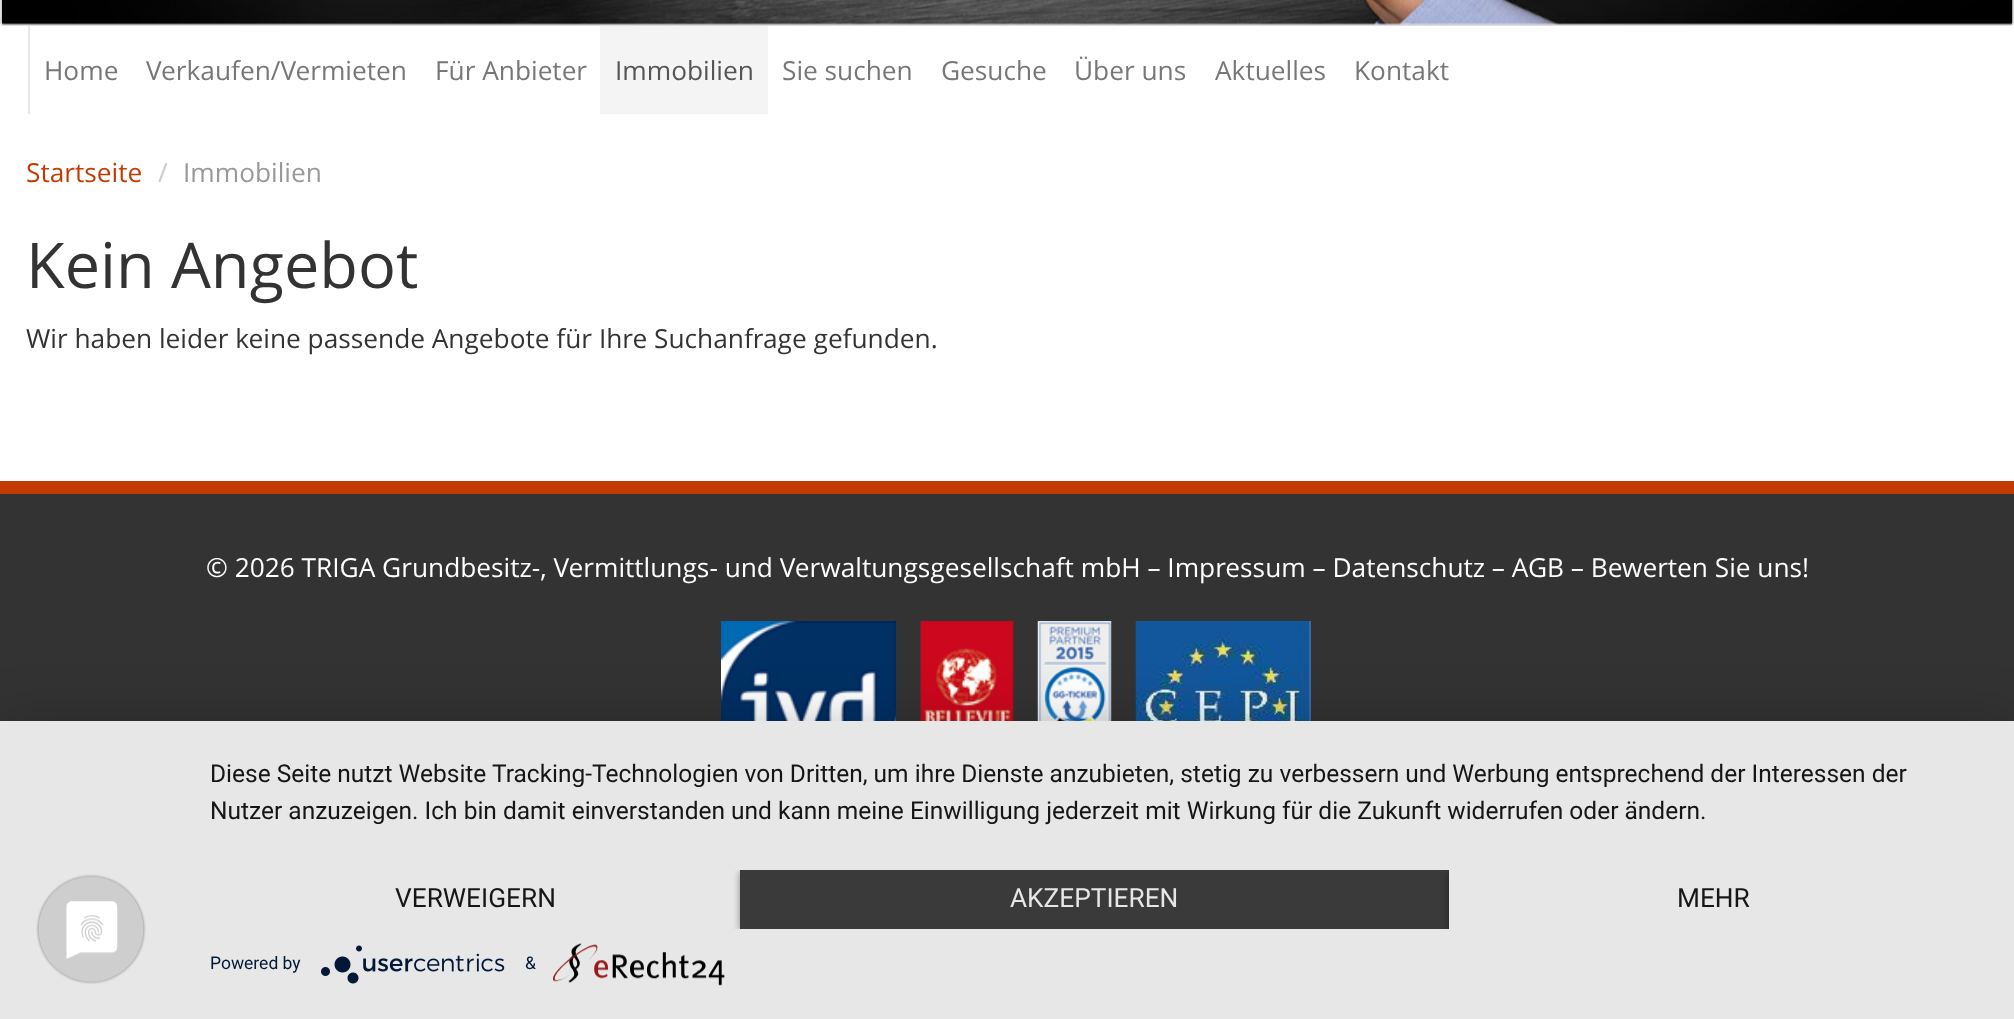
async function draw(canvas) {
  canvas.width = 2014;
  canvas.height = 1019;
  const ctx = canvas.getContext('2d');
  ctx.miterLimit = 4;
  ctx.fontKerning = 'normal';
  function label(s, x, y, font, color) {
    ctx.font = font;
    ctx.fillStyle = color;
    ctx.fillText(s, x, y);
  }
  function rect(x, y, w, h, color) {
    ctx.fillStyle = color;
    ctx.fillRect(x, y, w, h);
  }
  async function image(src, x, y, w, h) {
    const img = new Image();
    img.src = src;
    await img.decode();
    ctx.drawImage(img, x, y, w, h);
  }

  rect(0, 0, 2014, 1019, '#333');
  rect(0, 22, 2014, 459, '#fff');
  ctx.beginPath();
  ctx.roundRect(1, -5, 2012, 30, 3);
  ctx.strokeStyle = '#ddd';
  ctx.lineWidth = 2;
  ctx.stroke();
  await image('assets/img1.png', 1, 0, 2012, 25);
  rect(28, 26, 2, 88, '#e7e7e7');
  label('Home', 44, 80, '26.25px Open Sans', '#777');
  label('Verkaufen/Vermieten', 146, 80, '26.25px Open Sans', '#777');
  label('Für Anbieter', 435, 80, '26.25px Open Sans', '#777');
  rect(600, 26, 168, 88, '#f4f4f4');
  label('Immobilien', 615, 80, '26.25px Open Sans', '#555');
  label('Sie suchen', 782, 80, '26.25px Open Sans', '#777');
  label('Gesuche', 941, 80, '26.25px Open Sans', '#777');
  label('Über uns', 1074, 80, '26.25px Open Sans', '#777');
  label('Aktuelles', 1215, 80, '26.25px Open Sans', '#777');
  label('Kontakt', 1354, 80, '26.25px Open Sans', '#777');
  label('Startseite', 26, 182, '26.25px Open Sans', '#c33b00');
  label('/', 158, 182, '26.25px Open Sans', '#ccc');
  label('Immobilien', 183, 182, '26.25px Open Sans', '#999');
  label('Kein Angebot', 26, 288, '63px Open Sans', '#333');
  label('Wir haben leider keine passende Angebote für Ihre Suchanfrage gefunden.', 26, 348, '26.25px Open Sans', '#333');
  rect(0, 481, 2014, 13, '#c33b00');
  label('© 2026 TRIGA Grundbesitz-, Vermittlungs- und Verwaltungsgesellschaft mbH – Impressum – Datenschutz – AGB – Bewerten Sie uns!', 206, 577, '26.25px Open Sans', '#fff');
  await image('assets/img2.png', 721, 621, 175, 100);
  await image('assets/img3.png', 920, 621, 94, 100);
  await image('assets/img4.png', 1037, 621, 75, 100);
  await image('assets/img5.png', 1135, 621, 176, 100);
  ctx.fillStyle = '#0000004d';
  ctx.filter = 'blur(31.5px)';
  ctx.beginPath();
  ctx.rect(0, 732, 2014, 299);
  ctx.fill();
  ctx.filter = 'none';
  rect(0, 721, 2014, 298, '#e7e7e7');
  await image('assets/img6.png', 36, 874, 110, 110);
  label('Diese Seite nutzt Website Tracking-Technologien von Dritten, um ihre Dienste anzubieten, stetig zu verbessern und Werbung entsprechend der Interessen der', 210, 782, '24.5px Roboto', '#161616');
  label('Nutzer anzuzeigen. Ich bin damit einverstanden und kann meine Einwilligung jederzeit mit Wirkung für die Zukunft widerrufen oder ändern.', 210, 819, '24.5px Roboto', '#161616');
  label('VERWEIGERN', 395, 907, '26.25px Roboto', '#161616');
  ctx.save();
  ctx.beginPath();
  ctx.rect(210, 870, 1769, 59);
  ctx.clip();
  ctx.fillStyle = '#00000066';
  ctx.filter = 'blur(3.5px)';
  ctx.beginPath();
  ctx.rect(740, 872, 709, 59);
  ctx.fill();
  ctx.filter = 'none';
  ctx.restore();
  rect(740, 870, 709, 59, '#3a3a3a');
  label('AKZEPTIEREN', 1010, 907, '26.25px Roboto', '#e6e6e6');
  ctx.save();
  ctx.beginPath();
  ctx.rect(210, 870, 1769, 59);
  ctx.clip();
  ctx.fillStyle = '#00000066';
  ctx.filter = 'blur(3.5px)';
  ctx.beginPath();
  ctx.rect(1449, 872, 530, 59);
  ctx.fill();
  ctx.filter = 'none';
  ctx.restore();
  rect(1449, 870, 530, 59, '#e7e7e7');
  label('MEHR', 1677, 907, '26.25px Roboto', '#161616');
  label('Powered by', 210, 969, '17.5px Roboto', '#021836');
  await image('assets/img7.png', 321, 945, 184, 39);
  label('&', 525, 969, '17.5px Roboto', '#021836');
  await image('assets/img8.png', 553, 943, 172, 43);
}

draw(document.querySelector('canvas'));
